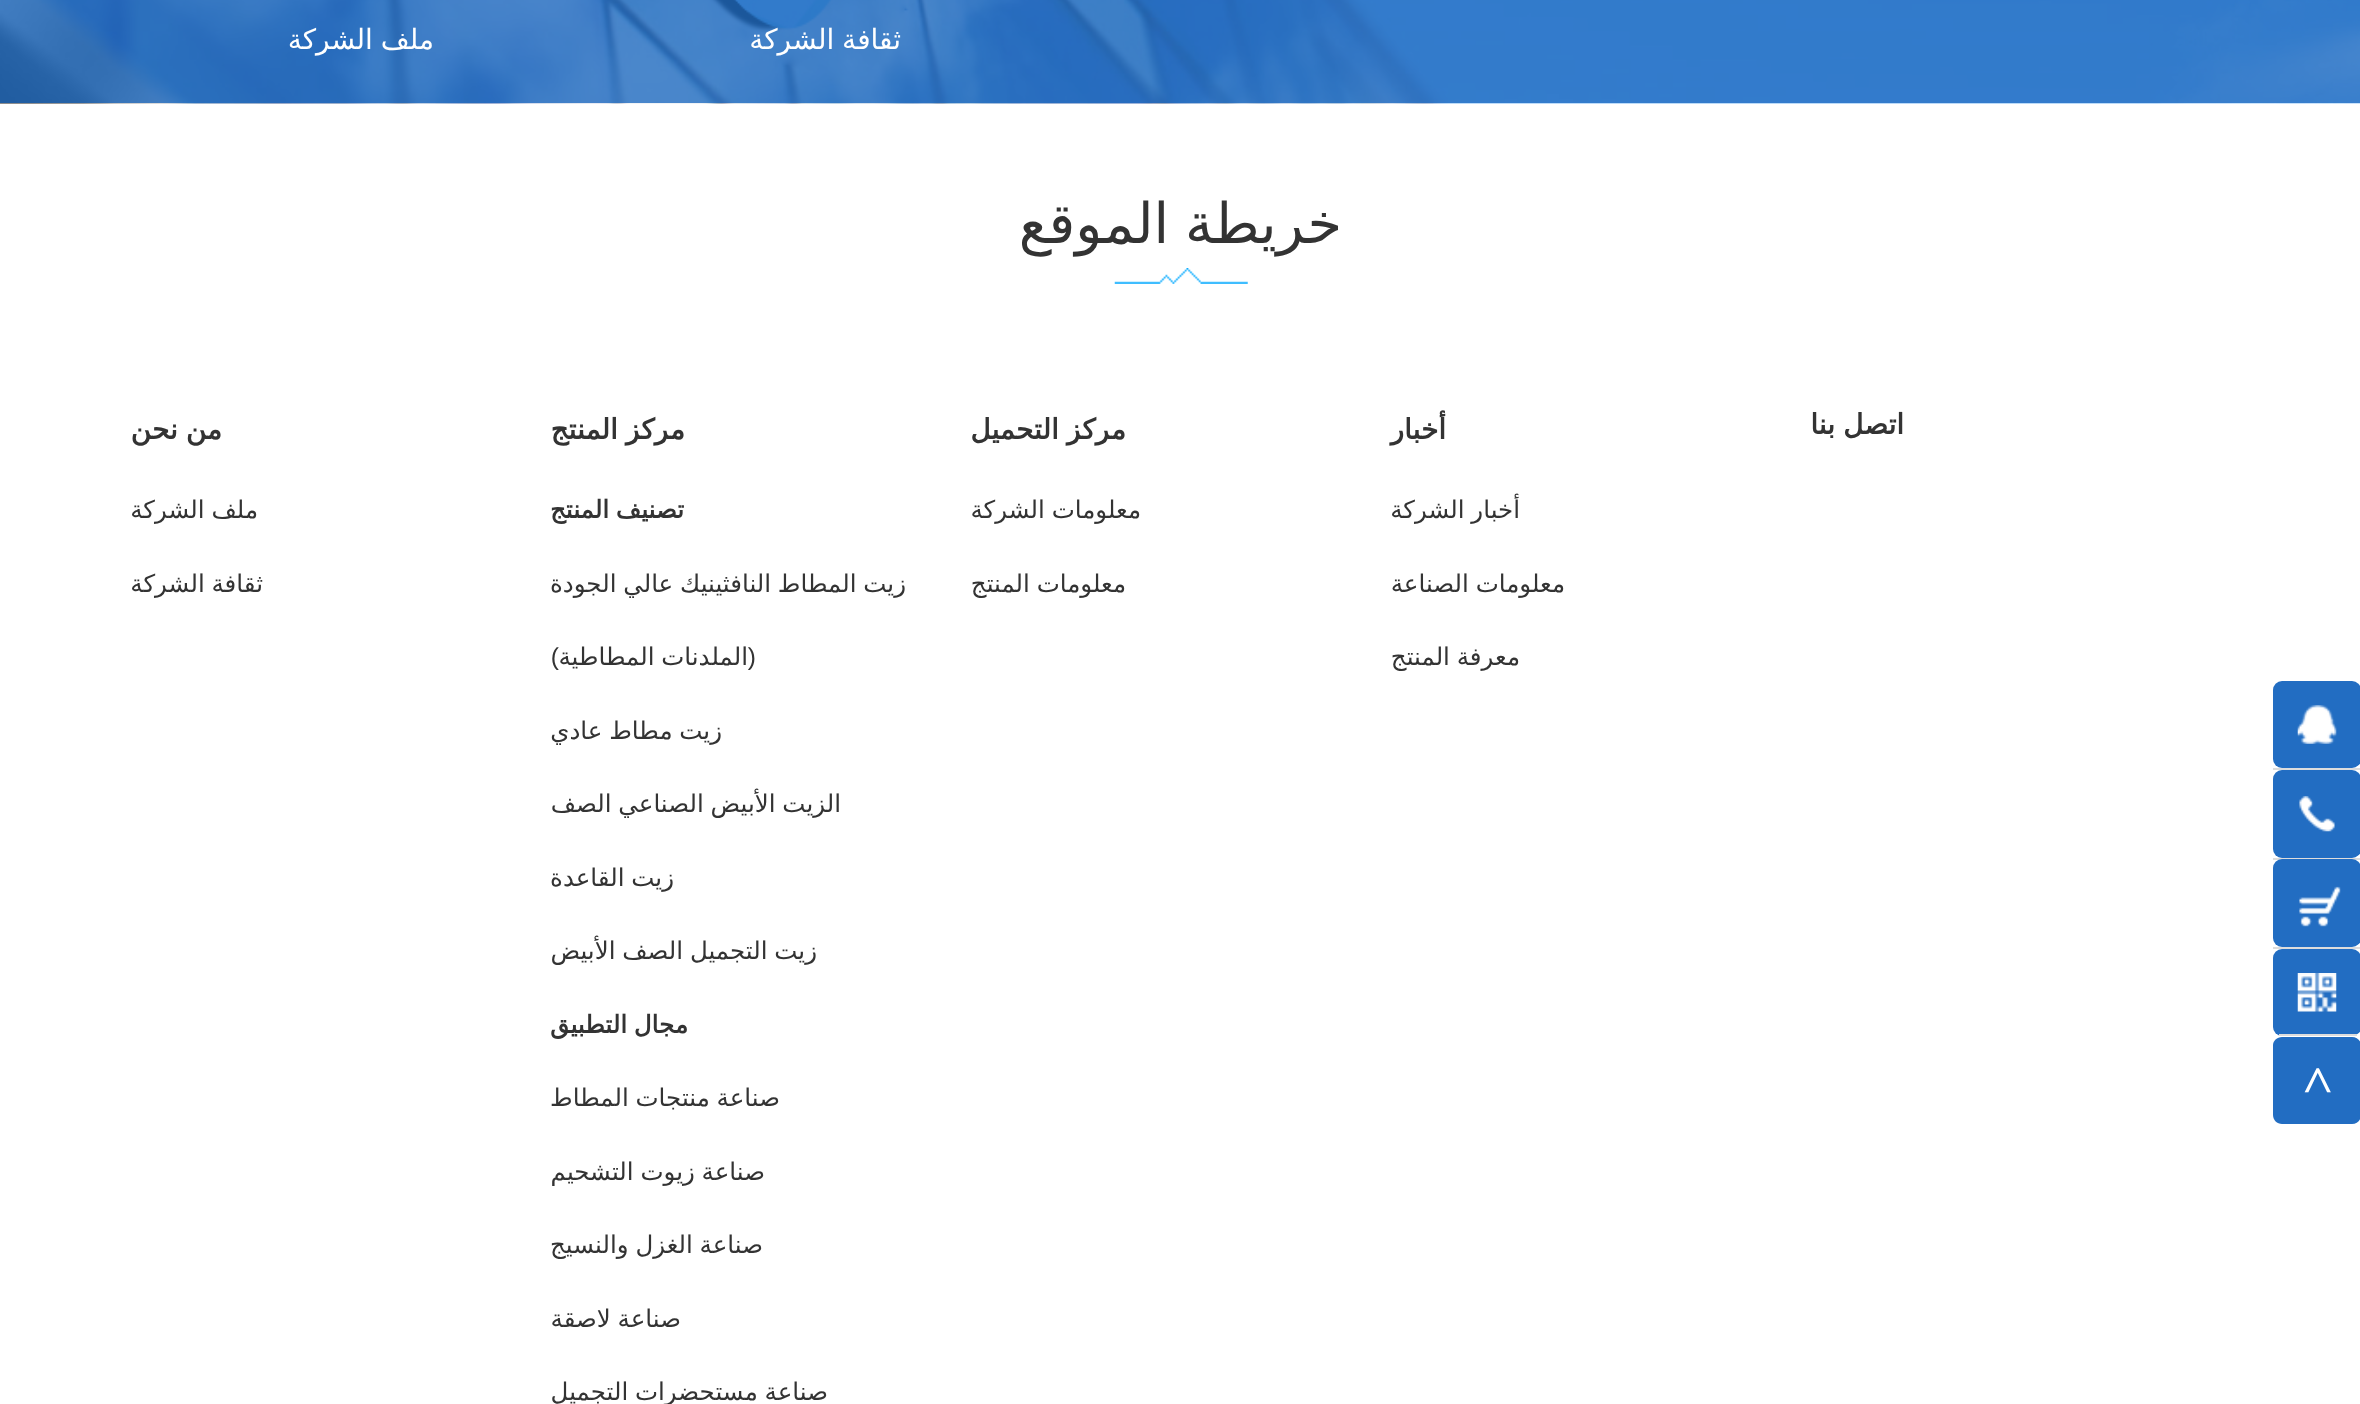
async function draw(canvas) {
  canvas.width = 2360;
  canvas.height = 1404;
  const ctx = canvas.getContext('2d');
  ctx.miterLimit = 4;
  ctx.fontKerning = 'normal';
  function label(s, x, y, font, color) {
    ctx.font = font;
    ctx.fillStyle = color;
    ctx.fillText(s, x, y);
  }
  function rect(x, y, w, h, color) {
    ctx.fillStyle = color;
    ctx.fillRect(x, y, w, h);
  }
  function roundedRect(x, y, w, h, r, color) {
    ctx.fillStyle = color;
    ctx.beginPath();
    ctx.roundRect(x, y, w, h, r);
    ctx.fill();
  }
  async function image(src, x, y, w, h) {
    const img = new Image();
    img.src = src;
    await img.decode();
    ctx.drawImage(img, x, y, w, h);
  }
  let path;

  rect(0, 0, 2360, 1404, '#fff');
  await image('assets/img1.png', 0, 0, 2360, 104);
  rect(2273, 768, 87, 2, '#ddd');
  roundedRect(2273, 681, 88, 87, 9, '#226dc2');
  await image('assets/img2.png', 2297, 705, 40, 39);
  rect(2273, 858, 87, 2, '#ddd');
  roundedRect(2273, 770, 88, 88, 9, '#226dc2');
  await image('assets/img3.png', 2299, 796, 36, 36);
  rect(2273, 947, 87, 2, '#ddd');
  roundedRect(2273, 859, 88, 88, 9, '#226dc2');
  await image('assets/img4.png', 2299, 886, 42, 41);
  roundedRect(2273, 949, 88, 87, 9, '#226dc2');
  await image('assets/img5.png', 2297, 973, 40, 39);
  rect(2279, 1034, 78, 2, '#ddd');
  ctx.fillStyle = '#226dc2';
  path = new Path2D('M2273 1115V1045C2273 1041 2277 1037 2282 1037H2352C2357 1037 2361 1041 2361 1045V1115C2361 1120 2357 1124 2352 1124H2282C2277 1124 2273 1120 2273 1115Z');
  ctx.fill(path);
  ctx.font = 'bold 52px Liberation Serif';
  ctx.fillStyle = '#fff';
  ctx.save();
  ctx.translate(2335, 1095);
  ctx.rotate(-90 * Math.PI / 180);
  ctx.fillText('>', 0, 0);
  ctx.restore();
  ctx.wordSpacing = '-1px';
  ctx.direction = 'rtl';
  label('ثقافة الشركة', 901, 49, '28px DejaVu Sans', '#fff');
  label('ملف الشركة', 434, 49, '28px DejaVu Sans', '#fff');
  ctx.wordSpacing = '-2px';
  label('خريطة الموقع', 1342, 243, '56px DejaVu Sans', '#333');
  await image('assets/img6.png', 1114, 268, 134, 16);
  ctx.wordSpacing = '-1px';
  label('اتصل بنا', 1904, 434, 'bold 28px DejaVu Sans', '#333');
  ctx.wordSpacing = '0px';
  label('أخبار', 1446, 439, 'bold 28px DejaVu Sans', '#333');
  ctx.wordSpacing = '-1px';
  label('أخبار الشركة', 1520, 518, '24.5px DejaVu Sans', '#333');
  label('معلومات الصناعة', 1565, 592, '24.5px DejaVu Sans', '#333');
  label('معرفة المنتج', 1520, 665, '24.5px DejaVu Sans', '#333');
  label('مركز التحميل', 1126, 439, 'bold 28px DejaVu Sans', '#333');
  label('معلومات الشركة', 1141, 518, '24.5px DejaVu Sans', '#333');
  label('معلومات المنتج', 1126, 592, '24.5px DejaVu Sans', '#333');
  label('مركز المنتج', 685, 439, 'bold 28px DejaVu Sans', '#333');
  label('تصنيف المنتج', 684, 518, 'bold 24.5px DejaVu Sans', '#333');
  label('زيت المطاط النافثينيك عالي الجودة', 906, 592, '24.5px DejaVu Sans', '#333');
  ctx.wordSpacing = '0px';
  label('(', 756, 665, '24.5px Liberation Sans', '#333');
  ctx.wordSpacing = '-1px';
  label('الملدنات المطاطية', 748, 665, '24.5px DejaVu Sans', '#333');
  ctx.wordSpacing = '0px';
  label(')', 559, 665, '24.5px Liberation Sans', '#333');
  ctx.wordSpacing = '-1px';
  label('زيت مطاط عادي', 722, 739, '24.5px DejaVu Sans', '#333');
  label('الزيت الأبيض الصناعي الصف', 841, 812, '24.5px DejaVu Sans', '#333');
  label('زيت القاعدة', 674, 886, '24.5px DejaVu Sans', '#333');
  label('زيت التجميل الصف الأبيض', 817, 959, '24.5px DejaVu Sans', '#333');
  label('مجال التطبيق', 688, 1033, 'bold 24.5px DejaVu Sans', '#333');
  label('صناعة منتجات المطاط', 780, 1106, '24.5px DejaVu Sans', '#333');
  label('صناعة زيوت التشحيم', 765, 1180, '24.5px DejaVu Sans', '#333');
  label('صناعة الغزل والنسيج', 763, 1253, '24.5px DejaVu Sans', '#333');
  label('صناعة لاصقة', 681, 1327, '24.5px DejaVu Sans', '#333');
  label('صناعة مستحضرات التجميل', 828, 1400, '24.5px DejaVu Sans', '#333');
  label('من نحن', 222, 439, 'bold 28px DejaVu Sans', '#333');
  label('ملف الشركة', 258, 518, '24.5px DejaVu Sans', '#333');
  label('ثقافة الشركة', 263, 592, '24.5px DejaVu Sans', '#333');
}

draw(document.querySelector('canvas'));
